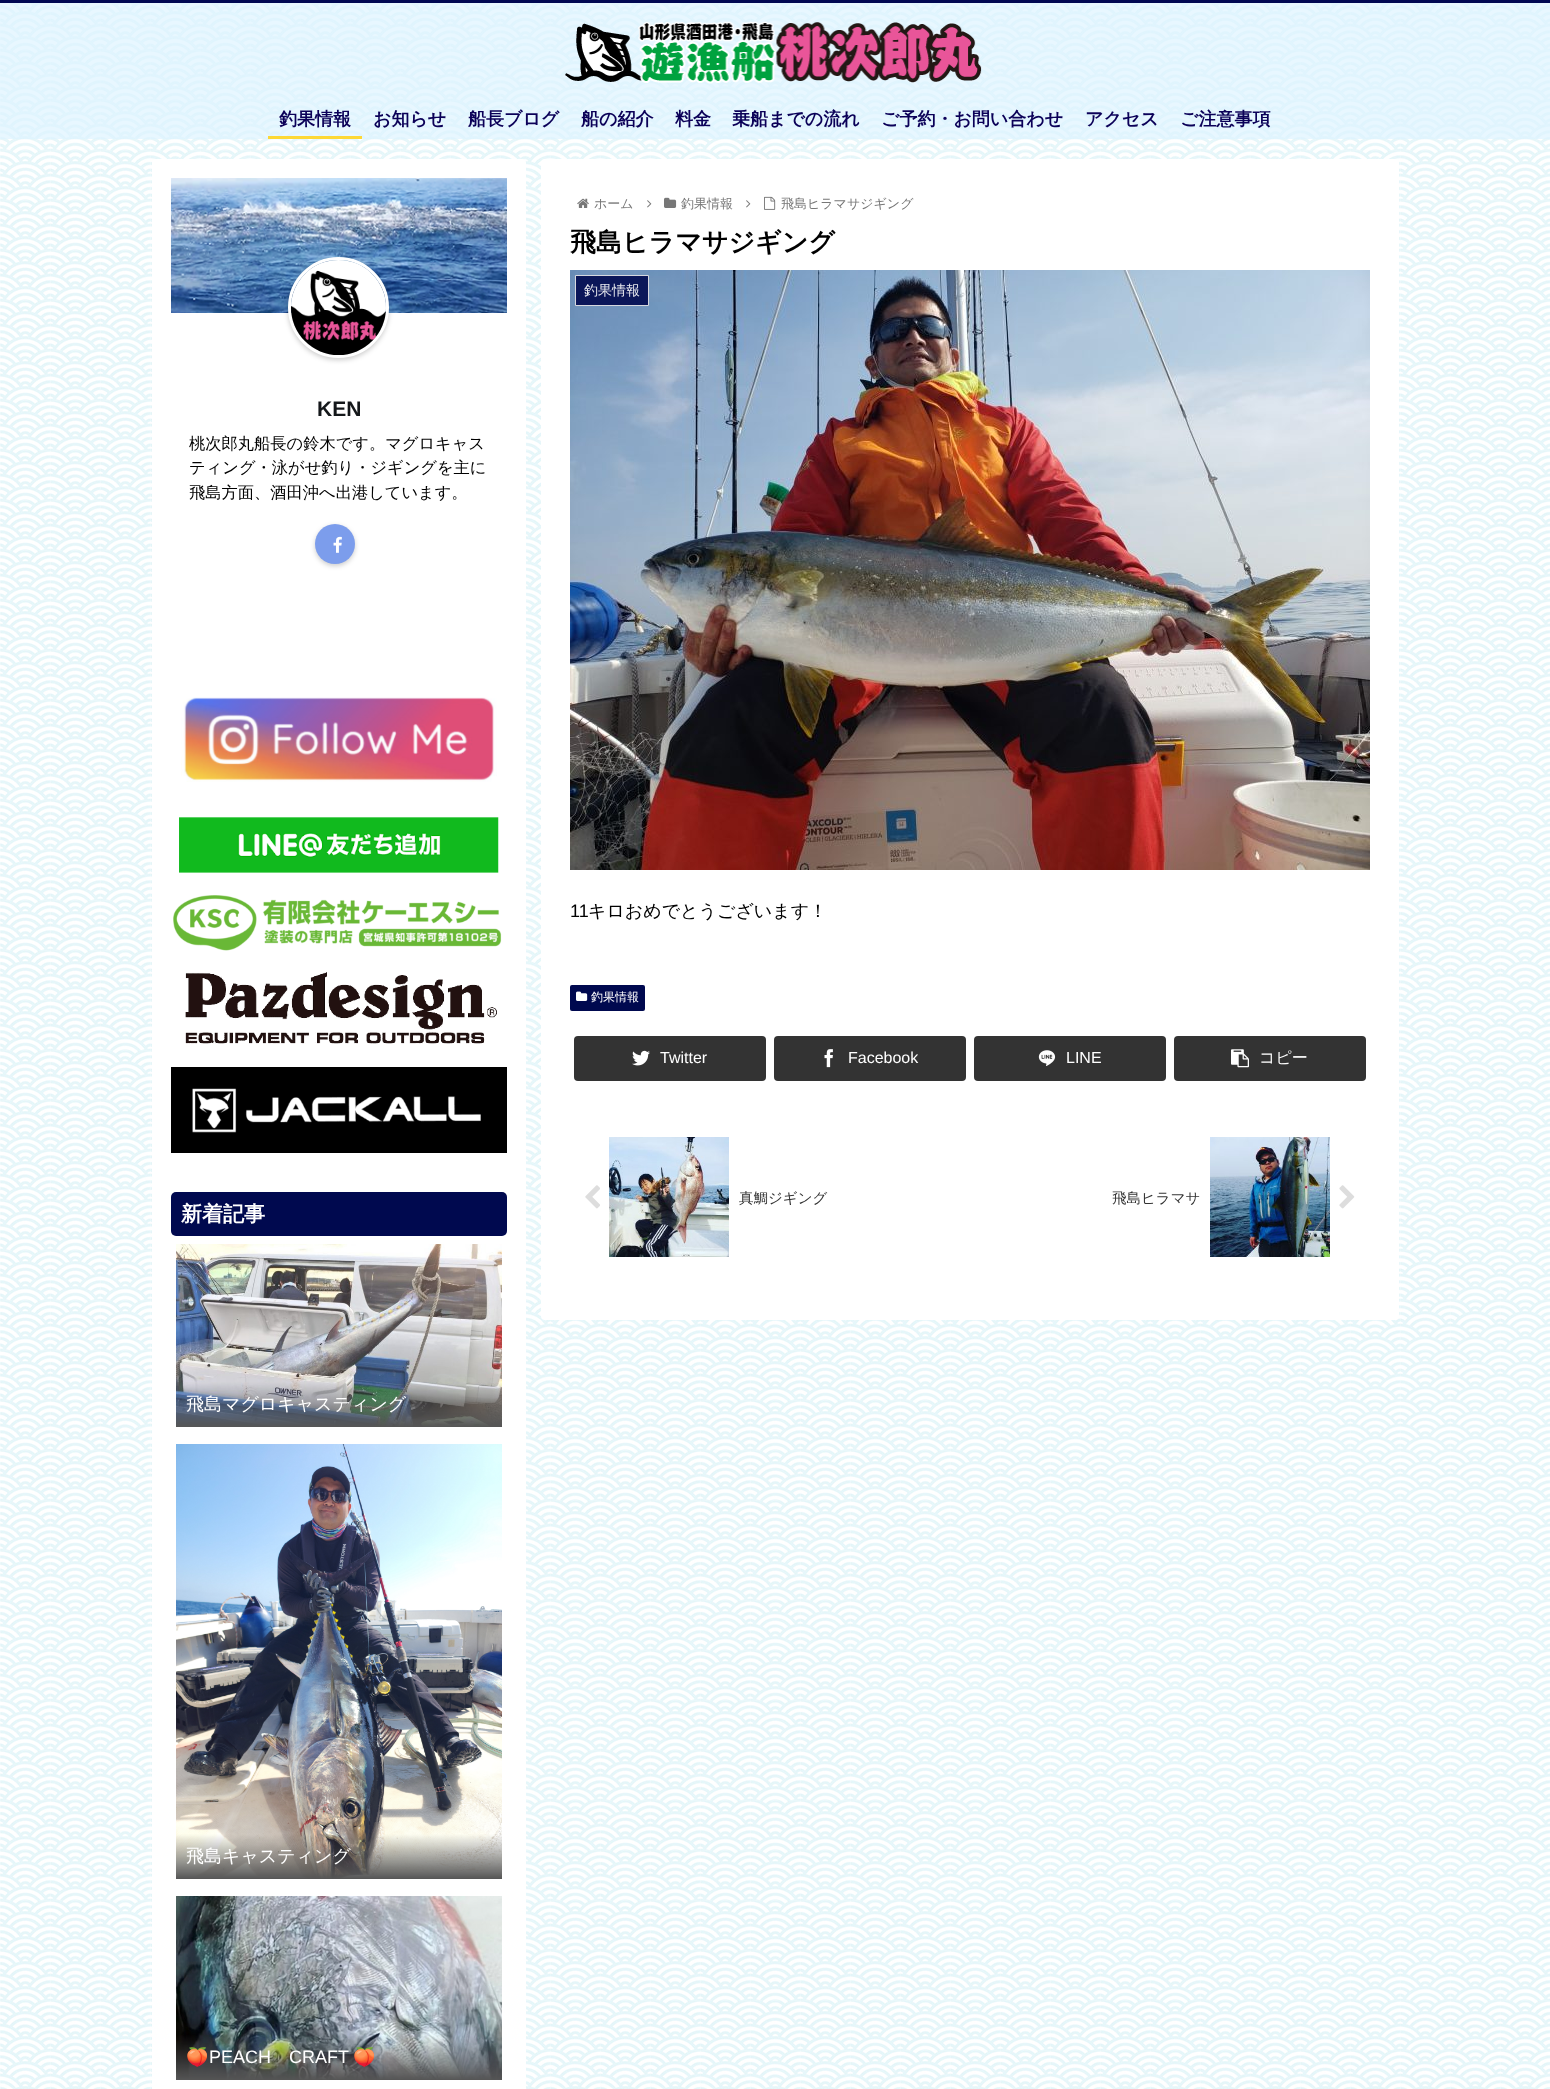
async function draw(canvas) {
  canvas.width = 1550;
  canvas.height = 2089;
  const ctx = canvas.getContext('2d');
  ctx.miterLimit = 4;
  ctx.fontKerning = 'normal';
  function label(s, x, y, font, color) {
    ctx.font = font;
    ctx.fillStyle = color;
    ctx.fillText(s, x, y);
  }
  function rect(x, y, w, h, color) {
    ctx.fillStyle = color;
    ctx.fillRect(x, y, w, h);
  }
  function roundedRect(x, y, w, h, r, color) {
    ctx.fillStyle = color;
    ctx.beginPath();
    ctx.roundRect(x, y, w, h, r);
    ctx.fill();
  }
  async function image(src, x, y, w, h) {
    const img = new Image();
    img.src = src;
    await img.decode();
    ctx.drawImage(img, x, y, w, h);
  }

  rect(0, 0, 1550, 2089, '#fff');
  await image('assets/img1.png', 0, 3, 1550, 2086);
  rect(0, 3, 1550, 136, '#ddf3ffad');
  rect(0, 0, 1550, 3, '#000852');
  await image('assets/img2.png', 565, 21, 417, 63);
  rect(268, 136, 94, 3, '#fdd835');
  label('釣果情報', 279, 125, 'bold 18px WenQuanYi Zen Hei', '#0b0058');
  label('お知らせ', 373, 125, 'bold 18px WenQuanYi Zen Hei', '#0b0058');
  label('船長ブログ', 468, 125, 'bold 18px WenQuanYi Zen Hei', '#0b0058');
  label('船の紹介', 581, 125, 'bold 18px WenQuanYi Zen Hei', '#0b0058');
  label('料金', 675, 125, 'bold 18px WenQuanYi Zen Hei', '#0b0058');
  label('乗船までの流れ', 732, 125, 'bold 18px WenQuanYi Zen Hei', '#0b0058');
  label('ご予約・お問い合わせ', 881, 125, 'bold 18px WenQuanYi Zen Hei', '#0b0058');
  label('アクセス', 1085, 125, 'bold 18px WenQuanYi Zen Hei', '#0b0058');
  label('ご注意事項', 1180, 125, 'bold 18px WenQuanYi Zen Hei', '#0b0058');
  roundedRect(152, 159, 374, 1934, 4, '#fff');
  await image('assets/img3.png', 171, 178, 336, 135);
  ctx.fillStyle = '#00000033';
  ctx.filter = 'blur(2.5px)';
  ctx.beginPath();
  ctx.roundRect(288, 259, 101, 101, 50.5);
  ctx.fill();
  ctx.filter = 'none';
  ctx.beginPath();
  ctx.arc(338.5, 307.5, 49, 0, 2 * Math.PI);
  ctx.strokeStyle = '#fff';
  ctx.lineWidth = 3;
  ctx.stroke();
  await image('assets/img4.png', 291, 260, 95, 95);
  label('KEN', 317, 416, 'bold 21px Liberation Sans', '#14171a');
  label('桃次郎丸船長の鈴木です。マグロキャス', 189, 449, '500 16.25px WenQuanYi Zen Hei', '#000');
  label('ティング・泳がせ釣り・ジギングを主に', 189, 473, '500 16.25px WenQuanYi Zen Hei', '#000');
  label('飛島方面、酒田沖へ出港しています。', 189, 498, '500 16.25px WenQuanYi Zen Hei', '#000');
  ctx.fillStyle = '#00000033';
  ctx.filter = 'blur(2.5px)';
  ctx.beginPath();
  ctx.roundRect(315, 526, 40, 40, 20);
  ctx.fill();
  ctx.filter = 'none';
  ctx.fillStyle = '#7c9dec';
  ctx.beginPath();
  ctx.arc(335, 544, 20, 0, 2 * Math.PI);
  ctx.fill();
  await image('assets/img5.png', 333, 536, 9, 17);
  await image('assets/img6.png', 181, 697, 316, 85);
  await image('assets/img7.png', 179, 817, 320, 56);
  await image('assets/img8.png', 173, 895, 329, 56);
  await image('assets/img9.png', 185, 972, 312, 72);
  await image('assets/img10.png', 171, 1067, 336, 86);
  roundedRect(171, 1192, 336, 44, 5, '#00094f');
  label('新着記事', 181, 1221, 'bold 21px WenQuanYi Zen Hei', '#fff');
  await image('assets/img11.png', 176, 1244, 326, 183);
  label('飛島マグロキャスティング', 186, 1410, '500 18px WenQuanYi Zen Hei', '#fff');
  await image('assets/img12.png', 176, 1444, 326, 435);
  label('飛島キャスティング', 186, 1862, '500 18px WenQuanYi Zen Hei', '#fff');
  await image('assets/img13.png', 176, 1896, 326, 184);
  label('🍑', 186, 2063, '18px Noto Color Emoji', '#fff');
  label('PEACH', 209, 2063, '18px Liberation Sans', '#fff');
  label('CRAFT', 289, 2063, '18px Liberation Sans', '#fff');
  label('🍑', 353, 2063, '18px Noto Color Emoji', '#fff');
  roundedRect(541, 159, 858, 1161, 4, '#fff');
  await image('assets/img14.png', 577, 198, 12, 10);
  label('ホーム', 594, 208, '500 13px WenQuanYi Zen Hei', '#777');
  await image('assets/img15.png', 647, 200, 5, 8);
  await image('assets/img16.png', 664, 197, 13, 11);
  label('釣果情報', 681, 208, '500 13px WenQuanYi Zen Hei', '#777');
  await image('assets/img15.png', 746, 200, 5, 8);
  await image('assets/img17.png', 764, 196, 12, 14);
  label('飛島ヒラマサジギング', 781, 208, '500 13px WenQuanYi Zen Hei', '#777');
  label('飛島ヒラマサジギング', 570, 251, 'bold 26px WenQuanYi Zen Hei', '#000');
  await image('assets/img18.png', 570, 270, 800, 600);
  ctx.fillStyle = '#00094fe6';
  ctx.beginPath();
  ctx.rect(575.5, 275.5, 73, 30);
  ctx.fill();
  ctx.strokeStyle = '#d7d8df';
  ctx.lineWidth = 1;
  ctx.stroke();
  label('釣果情報', 584, 295, '500 14px WenQuanYi Zen Hei', '#e7e8ee');
  label('11', 570, 917, '18px Liberation Sans', '#000');
  label('キロおめでとうございます！', 588, 917, '500 18px WenQuanYi Zen Hei', '#000');
  roundedRect(570, 985, 75, 26, 2, '#00094f');
  await image('assets/img19.png', 576, 991, 12, 10);
  label('釣果情報', 591, 1001, '500 12px WenQuanYi Zen Hei', '#fff');
  roundedRect(574, 1036, 192, 45, 4, '#333');
  await image('assets/img20.png', 632, 1050, 18, 16);
  label('Twitter', 660, 1063, '16px Liberation Sans', '#fff');
  roundedRect(774, 1036, 192, 45, 4, '#333');
  await image('assets/img21.png', 824, 1049, 9, 19);
  label('Facebook', 848, 1063, '16px Liberation Sans', '#fff');
  roundedRect(974, 1036, 192, 45, 4, '#333');
  await image('assets/img22.png', 1038, 1050, 18, 16);
  label('LINE', 1066, 1063, '16px Liberation Sans', '#fff');
  roundedRect(1174, 1036, 192, 45, 4, '#333');
  await image('assets/img23.png', 1231, 1049, 18, 19);
  label('コピー', 1259, 1063, '500 16px WenQuanYi Zen Hei', '#fff');
  await image('assets/img24.png', 585, 1185, 15, 24);
  await image('assets/img25.png', 609, 1137, 120, 120);
  label('真鯛ジギング', 739, 1203, '500 14.5px WenQuanYi Zen Hei', '#333');
  label('飛島ヒラマサ', 1112, 1203, '500 14.5px WenQuanYi Zen Hei', '#333');
  await image('assets/img26.png', 1210, 1137, 120, 120);
  await image('assets/img27.png', 1339, 1185, 16, 24);
}

draw(document.querySelector('canvas'));
